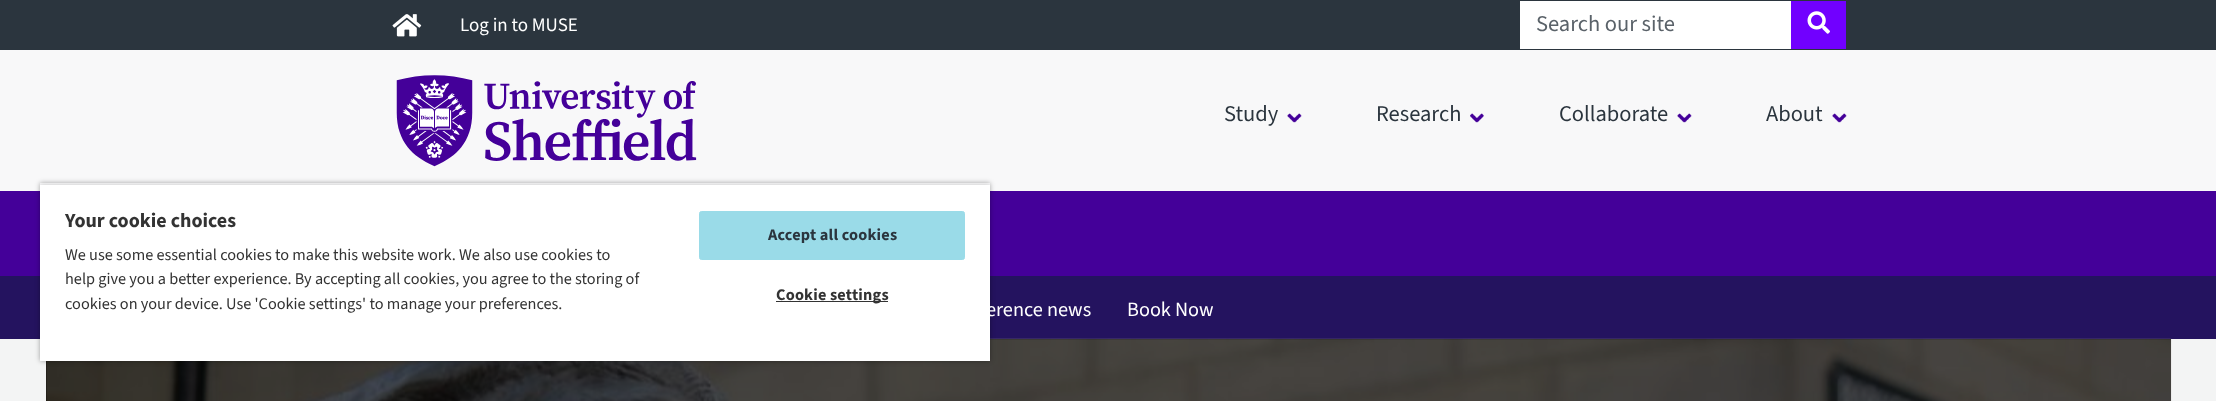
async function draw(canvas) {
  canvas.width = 2216;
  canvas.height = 401;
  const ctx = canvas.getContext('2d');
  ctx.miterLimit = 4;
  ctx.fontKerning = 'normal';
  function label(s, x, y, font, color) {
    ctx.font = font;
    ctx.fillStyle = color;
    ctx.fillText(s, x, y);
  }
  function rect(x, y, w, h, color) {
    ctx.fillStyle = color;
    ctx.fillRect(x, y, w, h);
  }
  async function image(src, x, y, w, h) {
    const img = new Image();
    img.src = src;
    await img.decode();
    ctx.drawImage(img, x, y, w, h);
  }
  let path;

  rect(0, 0, 2216, 401, '#f3f4f4');
  rect(0, 0, 2216, 50, '#2b353e');
  await image('assets/img1.png', 392, 14, 30, 23);
  label('Log in to MUSE', 460, 31, '200 19px "Source Sans 3"', '#fff');
  rect(1520, 1, 271, 48, '#fff');
  label('Search our site', 1536, 31, '200 22.5px "Source Sans 3"', '#5a6269');
  rect(1791, 1, 55, 48, '#7100ff');
  await image('assets/img2.png', 1807, 11, 23, 23);
  rect(0, 50, 2216, 141, '#f8f8f9');
  rect(0, 191, 2216, 85, '#409');
  rect(0, 276, 2216, 63, '#24135f');
  rect(46, 339, 2125, 62, '#000');
  await image('assets/img6.png', 46, 338, 2126, 63);
  ctx.save();
  path = new Path2D('M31 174H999V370H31ZM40 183H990V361H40Z');
  ctx.clip(path, 'evenodd');
  ctx.fillStyle = '#00000059';
  ctx.filter = 'blur(2.5px)';
  ctx.beginPath();
  ctx.rect(40, 183, 950, 178);
  ctx.fill();
  ctx.filter = 'none';
  ctx.restore();
  ctx.save();
  ctx.beginPath();
  ctx.rect(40, 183, 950, 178);
  ctx.clip();
  ctx.fillStyle = '#00000033';
  ctx.filter = 'blur(2.5px)';
  ctx.beginPath();
  ctx.rect(40, 185, 950, 176);
  ctx.fill();
  ctx.filter = 'none';
  ctx.restore();
  rect(40, 185, 950, 176, '#fff');
  label('Your cookie choices', 65, 227, '200 20px "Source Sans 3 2"', '#333');
  label('We use some essential cookies to make this website work. We also use cookies to', 65, 260, '200 16.25px "Source Sans 3"', '#333');
  label('help give you a better experience. By accepting all cookies, you agree to the storing of', 65, 284, '200 16.25px "Source Sans 3"', '#333');
  label('cookies on your device. Use \'Cookie settings\' to manage your preferences.', 65, 309, '200 16.25px "Source Sans 3"', '#333');
  ctx.fillStyle = '#9adbe8';
  ctx.beginPath();
  ctx.roundRect(699.5, 211.5, 265, 48, 2);
  ctx.fill();
  ctx.strokeStyle = '#9adbe8';
  ctx.stroke();
  ctx.letterSpacing = '0.2px';
  label('Accept all cookies', 768, 240, '200 16.25px "Source Sans 3 2"', '#2b353e');
  rect(776, 301, 112, 1, '#333');
  label('Cookie settings', 776, 300, '200 16.25px "Source Sans 3 2"', '#333');
  await image('assets/img3.png', 396, 75, 301, 92);
  await image('assets/img4.png', 1287, 113, 15, 10);
  ctx.letterSpacing = '0px';
  label('Study', 1224, 121, '200 22.5px "Source Sans 3"', '#2b353e');
  await image('assets/img5.png', 1470, 113, 14, 10);
  label('Research', 1376, 121, '200 22.5px "Source Sans 3"', '#2b353e');
  await image('assets/img4.png', 1677, 113, 15, 10);
  label('Collaborate', 1559, 121, '200 22.5px "Source Sans 3"', '#2b353e');
  await image('assets/img4.png', 1832, 113, 15, 10);
  label('About', 1766, 121, '200 22.5px "Source Sans 3"', '#2b353e');
  label('erence news', 986, 316, '200 20.25px "Source Sans 3"', '#fff');
  label('Book Now', 1127, 316, '200 20.25px "Source Sans 3"', '#fff');
}

draw(document.querySelector('canvas'));
